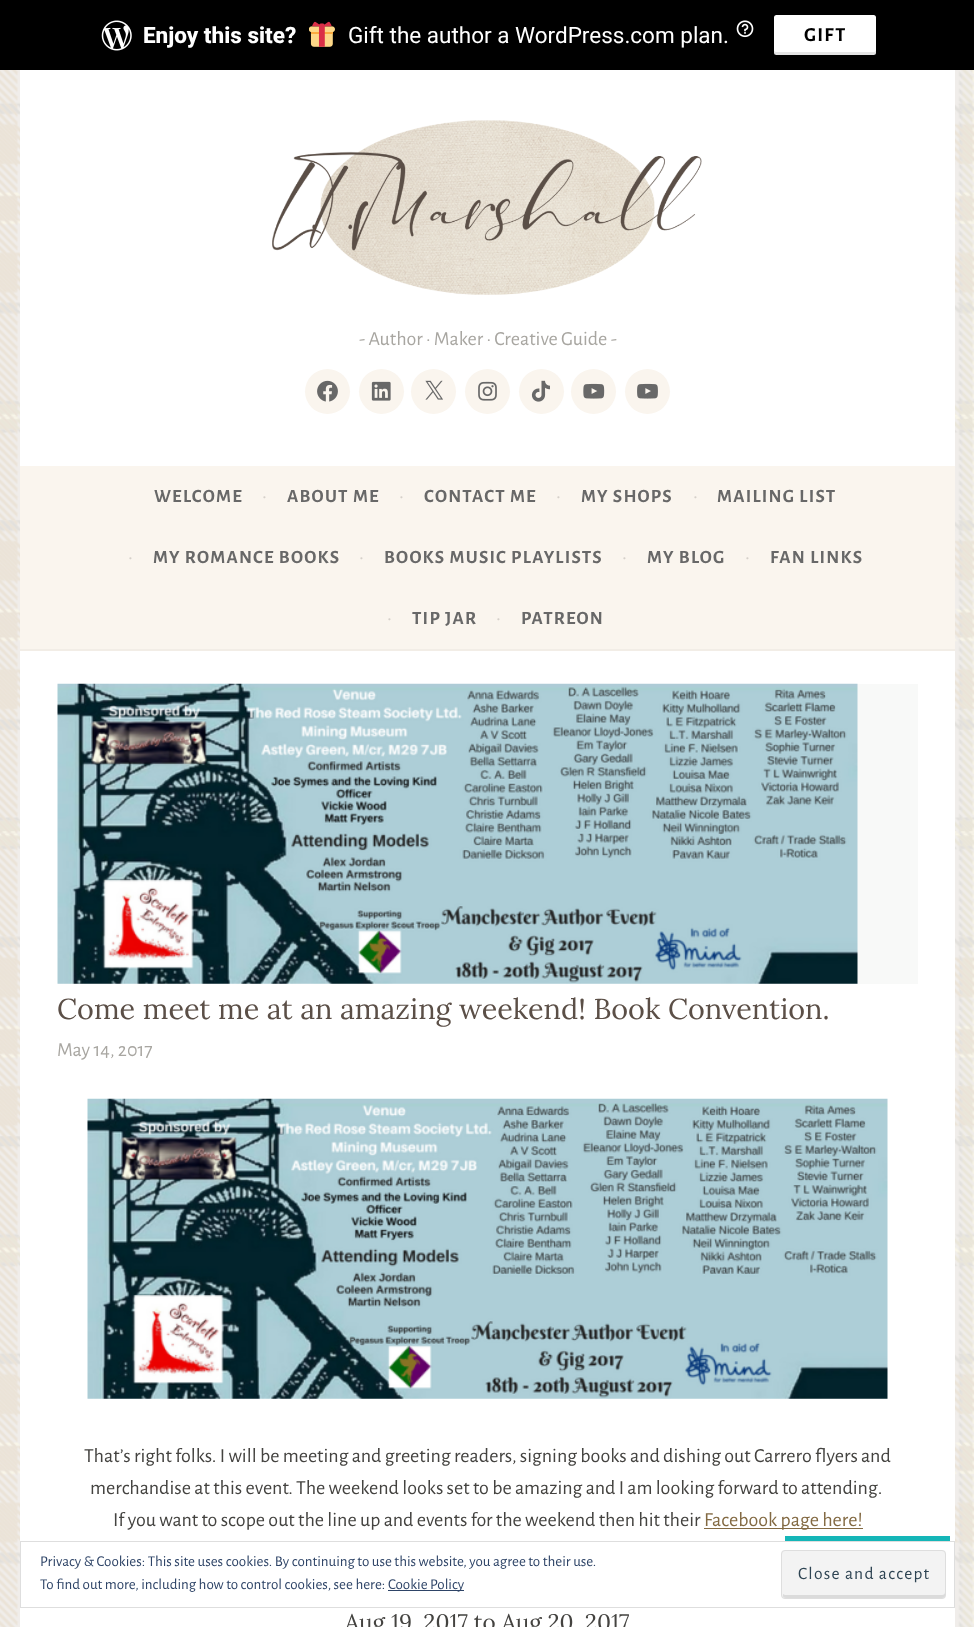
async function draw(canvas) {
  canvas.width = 974;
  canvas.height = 1627;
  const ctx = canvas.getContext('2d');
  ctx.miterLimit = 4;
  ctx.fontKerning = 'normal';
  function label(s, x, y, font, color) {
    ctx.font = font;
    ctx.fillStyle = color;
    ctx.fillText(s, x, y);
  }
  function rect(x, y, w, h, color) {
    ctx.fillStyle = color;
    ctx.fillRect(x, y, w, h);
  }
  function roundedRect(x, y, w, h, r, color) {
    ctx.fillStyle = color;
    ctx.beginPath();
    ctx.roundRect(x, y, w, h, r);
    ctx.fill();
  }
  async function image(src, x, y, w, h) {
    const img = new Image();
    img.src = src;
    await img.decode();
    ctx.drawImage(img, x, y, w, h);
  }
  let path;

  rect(0, 0, 974, 1627, '#fff');
  await image('assets/img1.png', 0, 70, 974, 1557);
  rect(0, 0, 974, 70, '#000');
  await image('assets/img2.png', 101, 20, 31, 31);
  label('Enjoy this site?', 143, 43, '800 22.5px Roboto', '#fff');
  await image('assets/img3.png', 309, 21, 26, 26);
  label('Gift the author a WordPress.com plan.', 348, 43, '22.5px Roboto', '#fff');
  await image('assets/img4.png', 736, 20, 18, 18);
  roundedRect(774, 15, 102, 40, 2.5, '#fff');
  ctx.fillStyle = '#0000001a';
  path = new Path2D('M774 50V52C774 54 775 55 776 55H874C875 55 876 54 876 52V50C876 51 875 52 874 52H776C775 52 774 51 774 50Z');
  ctx.fill(path);
  ctx.letterSpacing = '1.25px';
  label('GIFT', 804, 41, 'bold 20px Alegreya Sans', '#000');
  rect(20, 70, 935, 396, '#fff');
  await image('assets/img5.png', 272, 120, 430, 175);
  ctx.letterSpacing = '0px';
  label('- Author · Maker · Creative Guide -', 359, 345, '20px Alegreya Sans', '#a8a6a1');
  ctx.fillStyle = '#faf5ee';
  ctx.beginPath();
  ctx.arc(327.5, 391.5, 22.5, 0, 2 * Math.PI);
  ctx.fill();
  await image('assets/img6.png', 317, 380, 21, 22);
  ctx.beginPath();
  ctx.arc(381.5, 391.5, 22.5, 0, 2 * Math.PI);
  ctx.fill();
  await image('assets/img7.png', 371, 381, 20, 20);
  ctx.beginPath();
  ctx.arc(433.5, 391.5, 22.5, 0, 2 * Math.PI);
  ctx.fill();
  await image('assets/img8.png', 425, 380, 18, 20);
  ctx.beginPath();
  ctx.arc(487.5, 391.5, 22.5, 0, 2 * Math.PI);
  ctx.fill();
  await image('assets/img9.png', 478, 381, 19, 20);
  ctx.beginPath();
  ctx.arc(541.5, 391.5, 22.5, 0, 2 * Math.PI);
  ctx.fill();
  await image('assets/img10.png', 531, 380, 19, 22);
  ctx.beginPath();
  ctx.arc(593.5, 391.5, 22.5, 0, 2 * Math.PI);
  ctx.fill();
  await image('assets/img11.png', 583, 383, 22, 16);
  ctx.beginPath();
  ctx.arc(647.5, 391.5, 22.5, 0, 2 * Math.PI);
  ctx.fill();
  await image('assets/img12.png', 637, 383, 21, 16);
  rect(20, 466, 935, 185, '#faf5ee');
  rect(20, 649, 935, 2, '#00000008');
  ctx.letterSpacing = '1.25px';
  label('WELCOME', 154, 502, 'bold 18.75px Alegreya Sans', '#686868');
  ctx.letterSpacing = '0px';
  label('•', 262, 502, '20px Alegreya Sans', '#d5d0ca');
  ctx.letterSpacing = '1.25px';
  label('ABOUT ME', 287, 502, 'bold 18.75px Alegreya Sans', '#686868');
  ctx.letterSpacing = '0px';
  label('•', 399, 502, '20px Alegreya Sans', '#d5d0ca');
  ctx.letterSpacing = '1.25px';
  label('CONTACT ME', 424, 502, 'bold 18.75px Alegreya Sans', '#686868');
  ctx.letterSpacing = '0px';
  label('•', 556, 502, '20px Alegreya Sans', '#d5d0ca');
  ctx.letterSpacing = '1.25px';
  label('MY SHOPS', 581, 502, 'bold 18.75px Alegreya Sans', '#686868');
  ctx.letterSpacing = '0px';
  label('•', 693, 502, '20px Alegreya Sans', '#d5d0ca');
  ctx.letterSpacing = '1.25px';
  label('MAILING LIST', 717, 502, 'bold 18.75px Alegreya Sans', '#686868');
  ctx.letterSpacing = '0px';
  label('•', 128, 563, '20px Alegreya Sans', '#d5d0ca');
  ctx.letterSpacing = '1.25px';
  label('MY ROMANCE BOOKS', 153, 563, 'bold 18.75px Alegreya Sans', '#686868');
  ctx.letterSpacing = '0px';
  label('•', 359, 563, '20px Alegreya Sans', '#d5d0ca');
  ctx.letterSpacing = '1.25px';
  label('BOOKS MUSIC PLAYLISTS', 384, 563, 'bold 18.75px Alegreya Sans', '#686868');
  ctx.letterSpacing = '0px';
  label('•', 622, 563, '20px Alegreya Sans', '#d5d0ca');
  ctx.letterSpacing = '1.25px';
  label('MY BLOG', 647, 563, 'bold 18.75px Alegreya Sans', '#686868');
  ctx.letterSpacing = '0px';
  label('•', 745, 563, '20px Alegreya Sans', '#d5d0ca');
  ctx.letterSpacing = '1.25px';
  label('FAN LINKS', 770, 563, 'bold 18.75px Alegreya Sans', '#686868');
  ctx.letterSpacing = '0px';
  label('•', 387, 624, '20px Alegreya Sans', '#d5d0ca');
  ctx.letterSpacing = '1.25px';
  label('TIP JAR', 412, 624, 'bold 18.75px Alegreya Sans', '#686868');
  ctx.letterSpacing = '0px';
  label('•', 496, 624, '20px Alegreya Sans', '#d5d0ca');
  ctx.letterSpacing = '1.25px';
  label('PATREON', 521, 624, 'bold 18.75px Alegreya Sans', '#686868');
  rect(20, 651, 935, 976, '#fff');
  rect(58, 684, 860, 300, '#f8f9f8');
  await image('assets/img13.png', 57, 683, 801, 301);
  ctx.letterSpacing = '0px';
  label('Come meet me at an amazing weekend! Book Convention.', 57, 1019, '28.75px Lora', '#5b4f47');
  label('May 14, 2017', 57, 1056, '20px Alegreya Sans', '#a8a6a1');
  await image('assets/img14.png', 87, 1098, 801, 301);
  label('That’s right folks. I will be meeting and greeting readers, signing books and dishing out Carrero flyers and', 84, 1462, '20px Alegreya Sans', '#444340');
  label('merchandise at this event. The weekend looks set to be amazing and I am looking forward to attending.', 90, 1494, '20px Alegreya Sans', '#444340');
  label('If you want to scope out the line up and events for the weekend then hit their', 113, 1526, '20px Alegreya Sans', '#444340');
  label('F', 704, 1526, '20px Alegreya Sans', '#836a43');
  rect(704, 1528, 159, 1, '#836a43');
  label('acebook page here!', 712, 1526, '20px Alegreya Sans', '#836a43');
  label('Aug 19, 2017 to Aug 20, 2017', 345, 1630, '22.5px Lora', '#444340');
  rect(785, 1536, 165, 5, '#15b6b8');
  ctx.strokeStyle = '#dedede';
  ctx.strokeRect(20.5, 1541.5, 934, 66);
  label('Privacy & Cookies: This site uses cookies. By continuing to use this website, you agree to their use.', 40, 1566, '15px Alegreya Sans', '#2e4467');
  roundedRect(781, 1550, 165, 49, 4, '#f3f3f3');
  ctx.fillStyle = '#dbdbdb';
  path = new Path2D('M783 1594V1596C783 1597 784 1598 786 1598H942C944 1598 945 1597 945 1596V1592C945 1594 944 1595 942 1595H785Z');
  ctx.fill(path);
  ctx.beginPath();
  ctx.roundRect(781.5, 1550.5, 164, 48, 3.5);
  ctx.stroke();
  ctx.letterSpacing = '1.25px';
  label('Close and accept', 798, 1579, '17.5px Alegreya Sans', '#2e4453');
  ctx.letterSpacing = '0px';
  label('To find out more, including how to control cookies, see here:', 40, 1589, '15px Alegreya Sans', '#2e4467');
  rect(388, 1590, 76, 1, '#2e4467');
  label('Cookie Policy', 388, 1589, '15px Alegreya Sans', '#2e4467');
}

draw(document.querySelector('canvas'));
